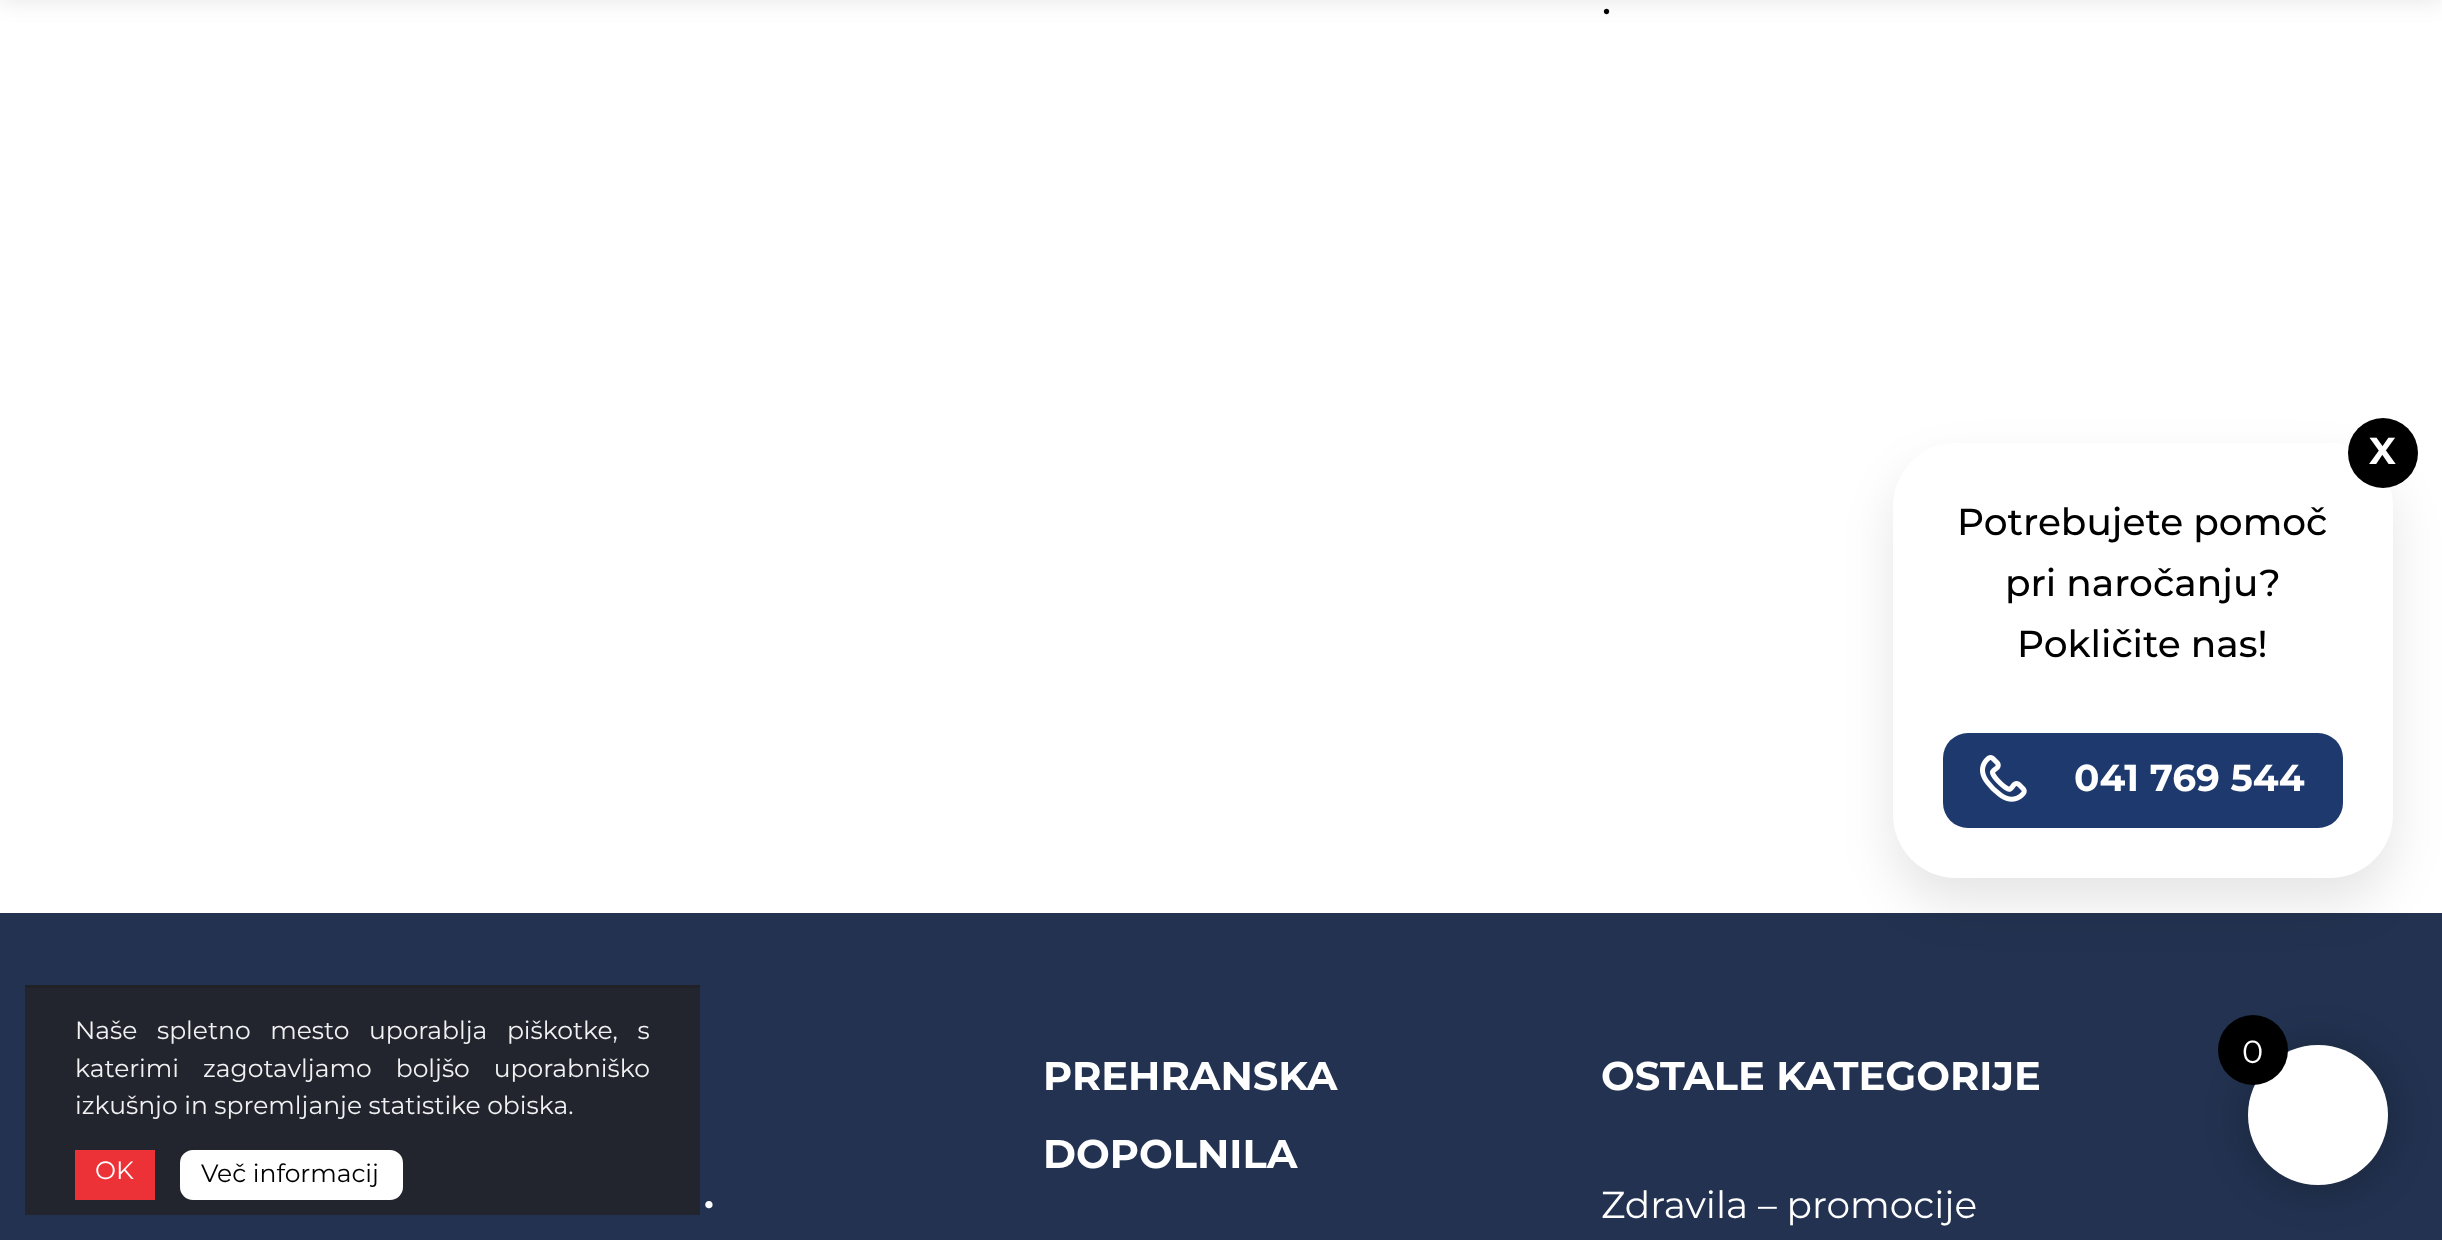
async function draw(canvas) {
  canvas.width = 2442;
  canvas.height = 1240;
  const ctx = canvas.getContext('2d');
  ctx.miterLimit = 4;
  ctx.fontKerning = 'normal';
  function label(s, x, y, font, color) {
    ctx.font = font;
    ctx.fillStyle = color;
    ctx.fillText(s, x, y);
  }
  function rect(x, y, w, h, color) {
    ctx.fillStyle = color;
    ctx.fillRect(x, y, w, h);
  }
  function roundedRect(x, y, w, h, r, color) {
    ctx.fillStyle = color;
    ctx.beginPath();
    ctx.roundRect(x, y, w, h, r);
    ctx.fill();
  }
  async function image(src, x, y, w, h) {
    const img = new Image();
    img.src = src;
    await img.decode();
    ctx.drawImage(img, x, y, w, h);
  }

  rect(0, 0, 2442, 1240, '#fff');
  rect(0, 913, 2442, 327, '#223250');
  rect(25, 988, 675, 227, '#323a4580');
  rect(25, 985, 675, 3, '#202226');
  rect(25, 988, 675, 227, '#202226cc');
  ctx.wordSpacing = '13px';
  label('Naše spletno mesto uporablja piškotke, s', 75, 1039, '25px Montserrat', '#f1f1f3');
  ctx.wordSpacing = '17.5px';
  label('katerimi zagotavljamo boljšo uporabniško', 75, 1077, '25px Montserrat', '#f1f1f3');
  ctx.wordSpacing = '0px';
  label('izkušnjo in spremljanje statistike obiska.', 75, 1114, '25px Montserrat', '#f1f1f3');
  rect(75, 1150, 80, 50, '#ed3237');
  label('OK', 95, 1179, '25px Montserrat', '#fff');
  ctx.beginPath();
  ctx.roundRect(181.5, 1151.5, 220, 47, 11.5);
  ctx.fill();
  ctx.strokeStyle = '#fff';
  ctx.lineWidth = 3;
  ctx.stroke();
  label('Več informacij', 201, 1182, '25px Montserrat', '#000');
  ctx.fillStyle = '#0000001a';
  ctx.filter = 'blur(12.5px)';
  ctx.beginPath();
  ctx.rect(0, -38, 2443, 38);
  ctx.fill();
  ctx.filter = 'none';
  label('.', 1602, 14, '500 40px Montserrat', '#000');
  ctx.fillStyle = '#0000001a';
  ctx.filter = 'blur(25px)';
  ctx.beginPath();
  ctx.roundRect(1893, 468, 500, 435, 63);
  ctx.fill();
  ctx.filter = 'none';
  roundedRect(1893, 443, 500, 435, 63, '#fff');
  ctx.fillStyle = '#000';
  ctx.beginPath();
  ctx.arc(2383, 453, 35, 0, 2 * Math.PI);
  ctx.fill();
  label('X', 2369, 464, 'bold 37.5px Montserrat', '#fff');
  label('Potrebujete pomoč', 1957, 535, '500 37.5px Montserrat', '#000');
  label('pri naročanju?', 2005, 596, '500 37.5px Montserrat', '#000');
  label('Pokličite nas!', 2017, 657, '500 37.5px Montserrat', '#000');
  roundedRect(1943, 733, 400, 95, 25, '#1e396d');
  await image('assets/img1.png', 1980, 755, 47, 47);
  label('041 769 544', 2074, 791, 'bold 37.5px Montserrat', '#fff');
  label('.', 704, 1208, 'bold 37.5px Montserrat', '#fff');
  label('PREHRANSKA', 1043, 1090, 'bold 40px Montserrat', '#fff');
  label('DOPOLNILA', 1043, 1168, 'bold 40px Montserrat', '#fff');
  label('OSTALE KATEGORIJE', 1601, 1090, 'bold 40px Montserrat', '#fff');
  label('Zdravila – promocije', 1601, 1218, '37.5px Montserrat', '#fff');
  ctx.fillStyle = '#00000033';
  ctx.filter = 'blur(19px)';
  ctx.beginPath();
  ctx.roundRect(2243, 1043, 150, 150, 75);
  ctx.fill();
  ctx.filter = 'none';
  ctx.fillStyle = '#fff';
  ctx.beginPath();
  ctx.arc(2318, 1115, 70, 0, 2 * Math.PI);
  ctx.fill();
  ctx.fillStyle = '#000';
  ctx.beginPath();
  ctx.arc(2253, 1050, 35, 0, 2 * Math.PI);
  ctx.fill();
  label('0', 2242, 1063, '32px Montserrat', '#fff');
}

draw(document.querySelector('canvas'));
